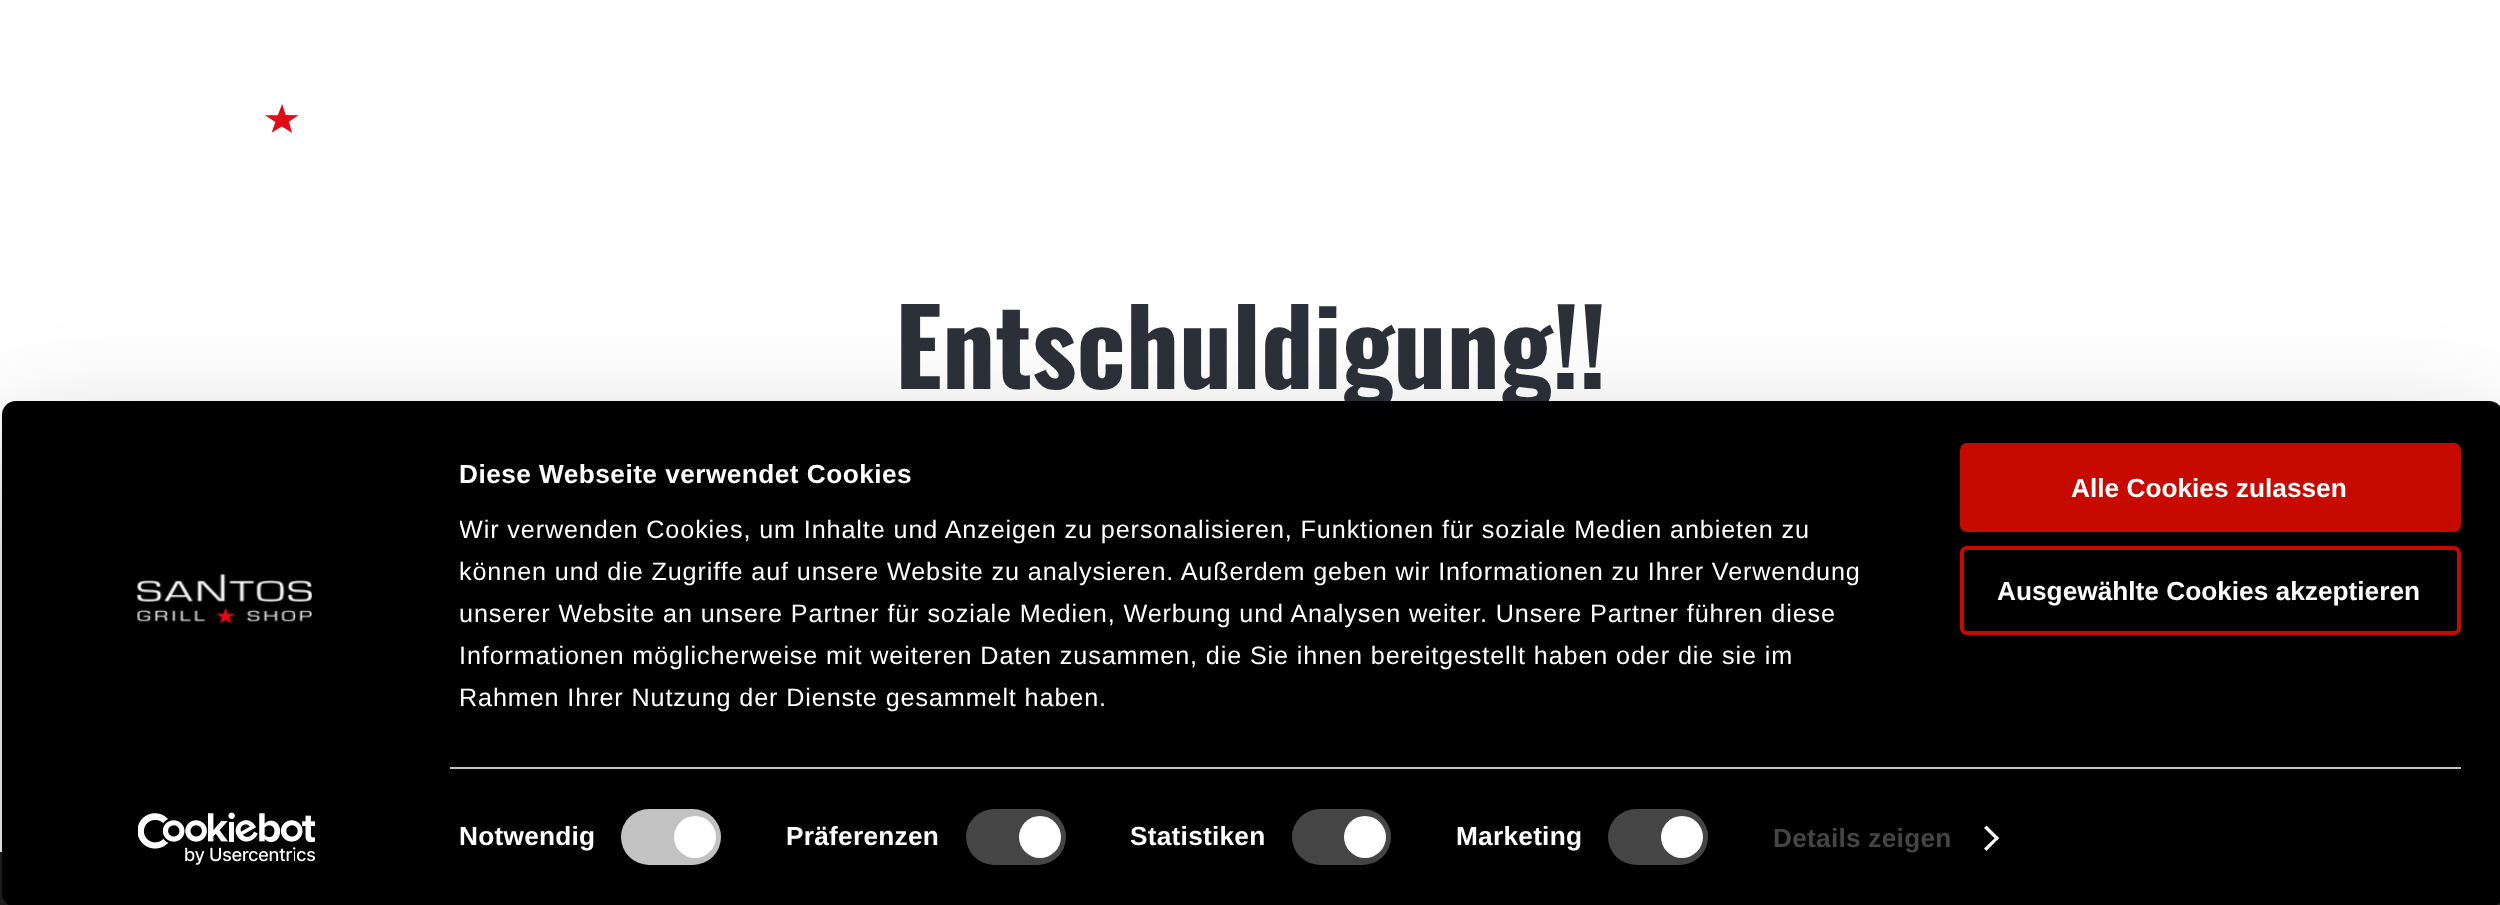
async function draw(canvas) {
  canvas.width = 2500;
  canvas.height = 905;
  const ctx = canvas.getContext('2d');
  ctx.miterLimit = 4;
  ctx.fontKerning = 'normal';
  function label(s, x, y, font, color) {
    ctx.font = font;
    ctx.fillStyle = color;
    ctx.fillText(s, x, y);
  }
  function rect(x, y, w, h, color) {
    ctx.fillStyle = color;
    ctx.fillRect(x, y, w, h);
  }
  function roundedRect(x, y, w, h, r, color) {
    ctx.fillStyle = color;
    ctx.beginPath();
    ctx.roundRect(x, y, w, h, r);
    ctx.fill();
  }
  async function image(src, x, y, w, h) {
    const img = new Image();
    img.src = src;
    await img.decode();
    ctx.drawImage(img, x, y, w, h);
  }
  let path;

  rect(0, 0, 2500, 905, '#fff');
  await image('assets/img1.png', 265, 104, 34, 29);
  label('Entschuldigung!!', 895, 389, 'bold 105px Oswald', '#2c3038');
  rect(0, 852, 2500, 53, '#212121');
  ctx.save();
  path = new Path2D('M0 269H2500V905H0ZM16 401H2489C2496.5 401 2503 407.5 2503 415V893C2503 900.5 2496.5 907 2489 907H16C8.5 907 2 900.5 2 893V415C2 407.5 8.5 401 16 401Z');
  ctx.clip(path, 'evenodd');
  ctx.fillStyle = '#0000004d';
  ctx.filter = 'blur(61px)';
  ctx.beginPath();
  ctx.roundRect(2, 453, 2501, 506, 14);
  ctx.fill();
  ctx.filter = 'none';
  ctx.restore();
  roundedRect(2, 401, 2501, 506, 14, '#000');
  ctx.letterSpacing = '0.45px';
  label('Diese Webseite verwendet Cookies', 459, 483, 'bold 26.25px Liberation Sans', '#fff');
  ctx.save();
  ctx.beginPath();
  ctx.rect(460, 453, 1449, 265);
  ctx.clip();
  ctx.letterSpacing = '0.88px';
  label('Wir verwenden Cookies, um Inhalte und Anzeigen zu personalisieren, Funktionen für soziale Medien anbieten zu', 459, 538, '25.2px Liberation Sans', '#fff');
  ctx.restore();
  ctx.letterSpacing = '0.88px';
  label('können und die Zugriffe auf unsere Website zu analysieren. Außerdem geben wir Informationen zu Ihrer Verwendung', 459, 580, '25.2px Liberation Sans', '#fff');
  label('unserer Website an unsere Partner für soziale Medien, Werbung und Analysen weiter. Unsere Partner führen diese', 459, 622, '25.2px Liberation Sans', '#fff');
  label('Informationen möglicherweise mit weiteren Daten zusammen, die Sie ihnen bereitgestellt haben oder die sie im', 459, 664, '25.2px Liberation Sans', '#fff');
  label('Rahmen Ihrer Nutzung der Dienste gesammelt haben.', 459, 706, '25.2px Liberation Sans', '#fff');
  rect(450, 767, 2011, 2, '#c2c2c2');
  ctx.letterSpacing = '0.25px';
  label('Notwendig', 459, 845, 'bold 26.25px Liberation Sans', '#fff');
  roundedRect(621, 809, 100, 56, 28, '#c2c2c2');
  ctx.fillStyle = '#fff';
  ctx.beginPath();
  ctx.arc(695, 837, 21, 0, 2 * Math.PI);
  ctx.fill();
  label('Präferenzen', 786, 845, 'bold 26.25px Liberation Sans', '#fff');
  roundedRect(966, 809, 100, 56, 28, '#454545');
  ctx.fillStyle = '#fff';
  ctx.beginPath();
  ctx.arc(1040, 837, 21, 0, 2 * Math.PI);
  ctx.fill();
  label('Statistiken', 1130, 845, 'bold 26.25px Liberation Sans', '#fff');
  roundedRect(1292, 809, 99, 56, 28, '#454545');
  ctx.fillStyle = '#fff';
  ctx.beginPath();
  ctx.arc(1365, 837, 21, 0, 2 * Math.PI);
  ctx.fill();
  label('Marketing', 1456, 845, 'bold 26.25px Liberation Sans', '#fff');
  roundedRect(1608, 809, 100, 56, 28, '#454545');
  ctx.fillStyle = '#fff';
  ctx.beginPath();
  ctx.arc(1682, 837, 21, 0, 2 * Math.PI);
  ctx.fill();
  label('Details zeigen', 1773, 847, 'bold 26.25px Liberation Sans', '#454545');
  ctx.fillStyle = '#fff';
  path = new Path2D('M1986.5 825.5L1999 838L1997 840.5L1984 828Z');
  ctx.fill(path);
  path = new Path2D('M1997 836L1999 838L1986.5 851L1984 848.5Z');
  ctx.fill(path);
  ctx.fillStyle = '#c70a00';
  ctx.beginPath();
  ctx.roundRect(1962, 445, 497, 85, 5);
  ctx.fill();
  ctx.strokeStyle = '#c70a00';
  ctx.lineWidth = 4;
  ctx.stroke();
  ctx.letterSpacing = '0px';
  label('Alle Cookies zulassen', 2071, 497, 'bold 26.25px Liberation Sans', '#fff');
  ctx.beginPath();
  ctx.roundRect(1962, 548, 497, 85, 5);
  ctx.stroke();
  label('Ausgewählte Cookies akzeptieren', 1997, 600, 'bold 26.25px Liberation Sans', '#fff');
  await image('assets/img2.png', 136, 574, 176, 50);
  await image('assets/img3.png', 138, 812, 177, 53);
}

draw(document.querySelector('canvas'));
